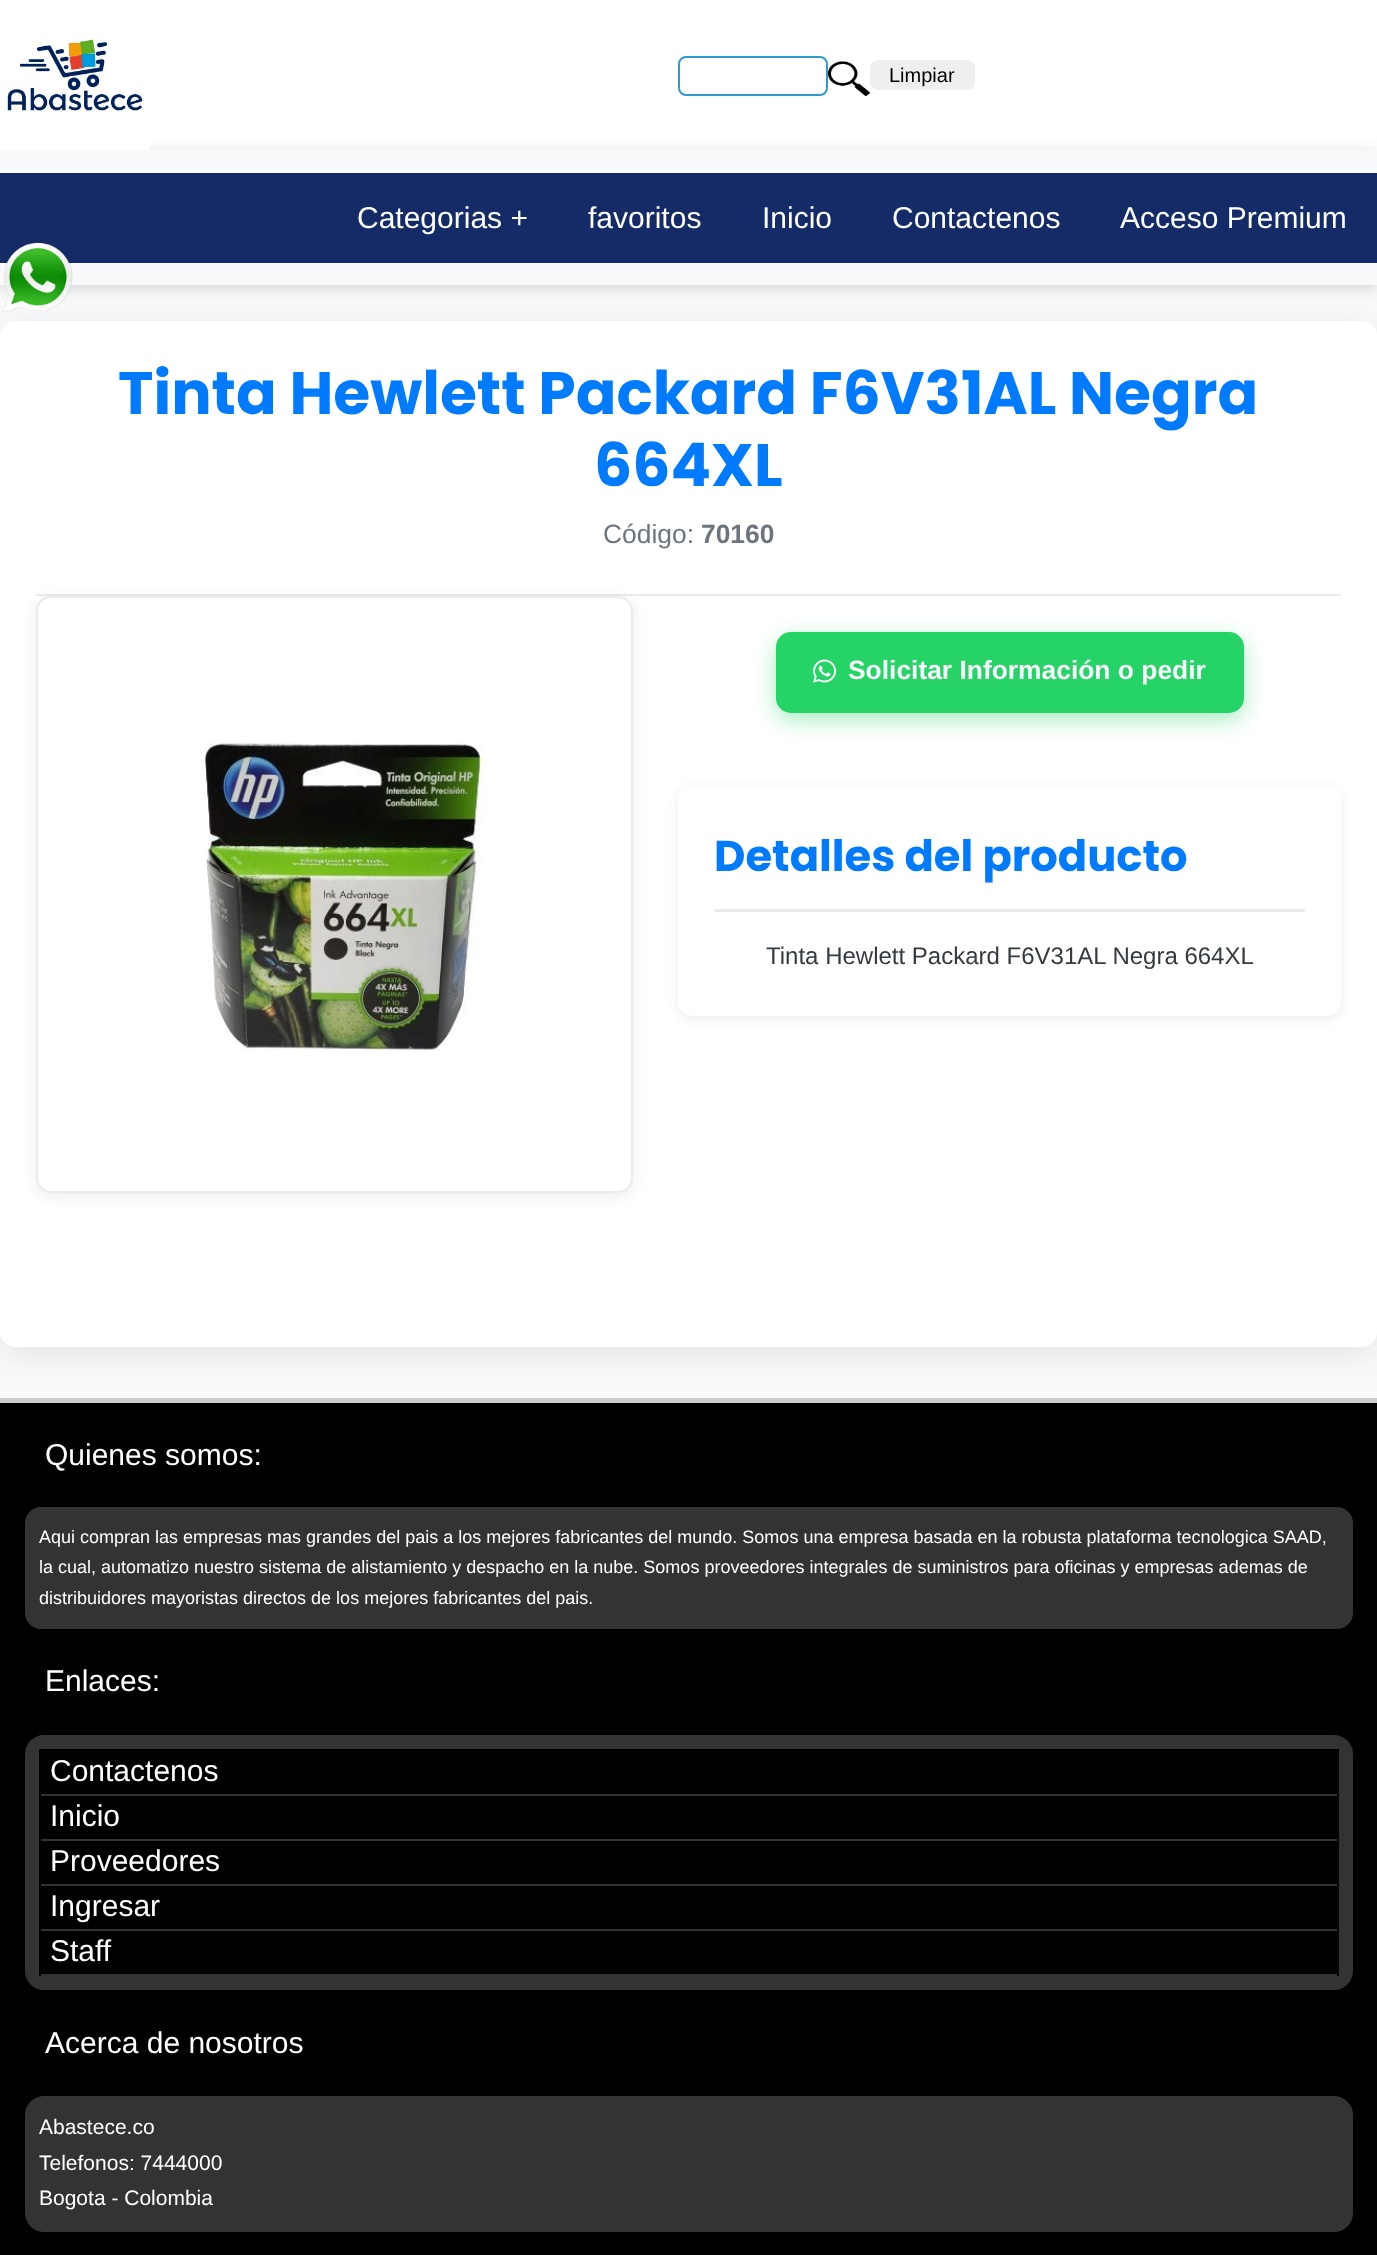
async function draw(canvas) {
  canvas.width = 1377;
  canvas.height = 2255;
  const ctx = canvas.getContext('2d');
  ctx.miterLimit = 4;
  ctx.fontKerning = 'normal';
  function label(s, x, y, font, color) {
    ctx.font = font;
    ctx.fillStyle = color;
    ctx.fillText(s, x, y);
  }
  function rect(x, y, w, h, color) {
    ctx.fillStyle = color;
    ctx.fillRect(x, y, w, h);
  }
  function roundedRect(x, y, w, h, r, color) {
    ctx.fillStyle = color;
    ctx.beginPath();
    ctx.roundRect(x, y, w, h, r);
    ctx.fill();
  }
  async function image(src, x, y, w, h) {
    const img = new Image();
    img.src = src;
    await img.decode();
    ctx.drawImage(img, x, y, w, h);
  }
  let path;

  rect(0, 0, 1377, 2255, '#f8f9fa');
  rect(0, 0, 1377, 150, '#fff');
  ctx.save();
  path = new Path2D('M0 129H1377V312H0ZM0 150H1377V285H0Z');
  ctx.clip(path, 'evenodd');
  ctx.fillStyle = '#00000026';
  ctx.filter = 'blur(7.5px)';
  ctx.beginPath();
  ctx.rect(0, 153, 1377, 135);
  ctx.fill();
  ctx.filter = 'none';
  ctx.restore();
  await image('assets/img1.png', 0, 38, 150, 112);
  ctx.beginPath();
  ctx.roundRect(679, 57, 148, 38, 7);
  ctx.strokeStyle = '#39c';
  ctx.lineWidth = 2;
  ctx.stroke();
  await image('assets/img2.png', 828, 61, 42, 35);
  roundedRect(870, 60, 105, 30, 8, '#efefef');
  label('Limpiar', 889, 82, '20px Liberation Sans', '#000');
  rect(0, 173, 1377, 90, '#152b68');
  label('Categorias +', 357, 228, '30px Liberation Sans', '#fff');
  label('favoritos', 588, 228, '30px Liberation Sans', '#fff');
  label('Inicio', 762, 228, '30px Liberation Sans', '#fff');
  label('Contactenos', 892, 228, '30px Liberation Sans', '#fff');
  label('Acceso Premium', 1120, 228, '30px Liberation Sans', '#fff');
  ctx.fillStyle = '#00000014';
  ctx.filter = 'blur(15px)';
  ctx.beginPath();
  ctx.roundRect(0, 329, 1377, 1026, 15);
  ctx.fill();
  ctx.filter = 'none';
  await image('assets/img3.png', 2, 242, 71, 71);
  roundedRect(0, 321, 1377, 1026, 15, '#fff');
  rect(36, 594, 1305, 2, '#e9ecef');
  label('Tinta Hewlett Packard F6V31AL Negra', 118, 414, 'bold 60px Poppins', '#007bff');
  label('664XL', 594, 486, 'bold 60px Poppins', '#007bff');
  label('Código:', 603, 543, '26.4px Liberation Sans', '#6c757d');
  label('70160', 701, 543, 'bold 26.4px Liberation Sans', '#6c757d');
  ctx.fillStyle = '#00000014';
  ctx.filter = 'blur(7.5px)';
  ctx.beginPath();
  ctx.roundRect(36, 599, 597, 597, 15);
  ctx.fill();
  ctx.filter = 'none';
  ctx.fillStyle = '#fff';
  ctx.beginPath();
  ctx.roundRect(37, 597, 595, 595, 14);
  ctx.fill();
  ctx.strokeStyle = '#e9ecef';
  ctx.stroke();
  await image('assets/img4.png', 200, 742, 291, 309);
  ctx.fillStyle = '#25d36666';
  ctx.filter = 'blur(11px)';
  ctx.beginPath();
  ctx.roundRect(776, 639, 468, 81, 15);
  ctx.fill();
  ctx.filter = 'none';
  roundedRect(776, 632, 468, 81, 15, '#25d366');
  await image('assets/img5.png', 813, 659, 24, 24);
  label('Solicitar Información o pedir', 848, 679, 'bold 26.4px Liberation Sans', '#f8f9fa');
  ctx.fillStyle = '#00000014';
  ctx.filter = 'blur(6px)';
  ctx.beginPath();
  ctx.roundRect(678, 788, 663, 231, 15);
  ctx.fill();
  ctx.filter = 'none';
  roundedRect(678, 785, 663, 231, 15, '#fff');
  rect(714, 909, 591, 3, '#e9ecef');
  label('Detalles del producto', 714, 871, 'bold 43.25px Poppins', '#007bff');
  label('Tinta Hewlett Packard F6V31AL Negra 664XL', 766, 964, '24px Liberation Sans', '#343a40');
  rect(0, 1398, 1377, 5, '#ccc');
  rect(0, 1403, 1377, 852, '#000');
  label('Quienes somos:', 45, 1465, '30px Liberation Sans', '#fff');
  ctx.fillStyle = '#333';
  ctx.beginPath();
  ctx.roundRect(24, 1506, 1330, 124, 17);
  ctx.fill();
  ctx.strokeStyle = '#000';
  ctx.stroke();
  label('Aqui compran las empresas mas grandes del pais a los mejores fabricantes del mundo. Somos una empresa basada en la robusta plataforma tecnologica SAAD,', 39, 1543, '18px Liberation Sans', '#fff');
  label('la cual, automatizo nuestro sistema de alistamiento y despacho en la nube. Somos proveedores integrales de suministros para oficinas y empresas ademas de', 39, 1573, '18px Liberation Sans', '#fff');
  label('distribuidores mayoristas directos de los mejores fabricantes del pais.', 39, 1604, '18px Liberation Sans', '#fff');
  label('Enlaces:', 45, 1691, '30px Liberation Sans', '#fff');
  ctx.fillStyle = '#333';
  ctx.beginPath();
  ctx.roundRect(24, 1734, 1330, 257, 20);
  ctx.fill();
  ctx.stroke();
  rect(39, 1749, 1299, 2, '#000');
  rect(1337, 1749, 2, 227, '#000');
  rect(39, 1749, 2, 227, '#000');
  rect(41, 1751, 1296, 43, '#000');
  label('Contactenos', 50, 1781, '30px Liberation Sans', '#fff');
  rect(41, 1796, 1296, 43, '#000');
  label('Inicio', 50, 1826, '30px Liberation Sans', '#fff');
  rect(41, 1841, 1296, 43, '#000');
  label('Proveedores', 50, 1871, '30px Liberation Sans', '#fff');
  rect(41, 1886, 1296, 43, '#000');
  label('Ingresar', 50, 1916, '30px Liberation Sans', '#fff');
  rect(41, 1931, 1296, 43, '#000');
  label('Staff', 50, 1961, '30px Liberation Sans', '#fff');
  label('Acerca de nosotros', 45, 2053, '30px Liberation Sans', '#fff');
  ctx.fillStyle = '#333';
  ctx.beginPath();
  ctx.roundRect(24, 2095, 1330, 138, 20);
  ctx.fill();
  ctx.stroke();
  label('Abastece.co', 39, 2134, '21px Liberation Sans', '#fff');
  label('Telefonos: 7444000', 39, 2170, '21px Liberation Sans', '#fff');
  label('Bogota - Colombia', 39, 2205, '21px Liberation Sans', '#fff');
}

draw(document.querySelector('canvas'));
